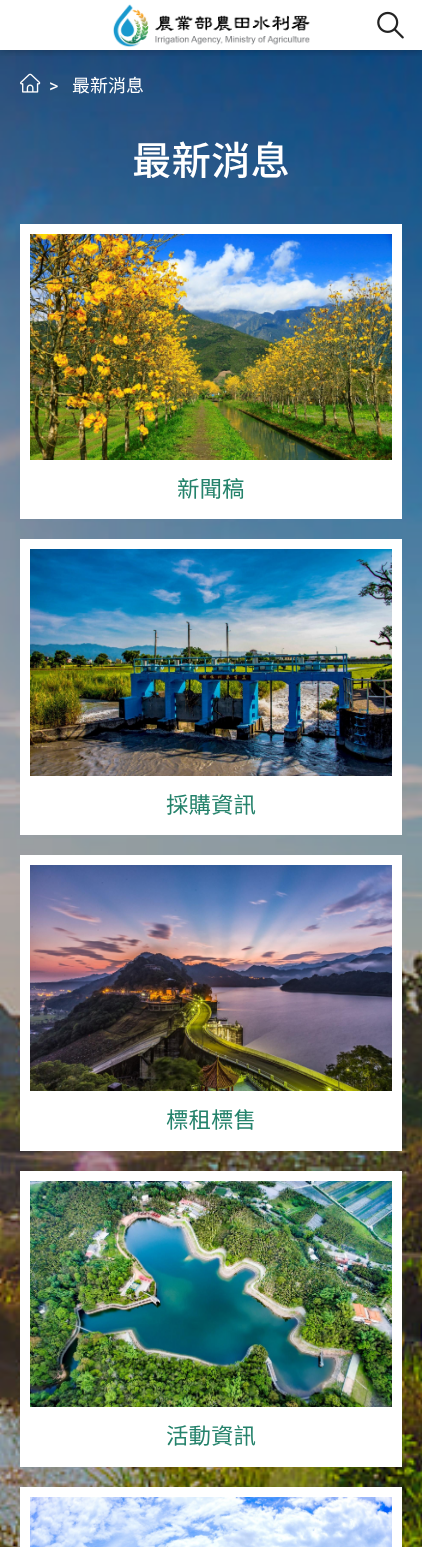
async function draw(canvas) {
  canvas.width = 422;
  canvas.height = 1547;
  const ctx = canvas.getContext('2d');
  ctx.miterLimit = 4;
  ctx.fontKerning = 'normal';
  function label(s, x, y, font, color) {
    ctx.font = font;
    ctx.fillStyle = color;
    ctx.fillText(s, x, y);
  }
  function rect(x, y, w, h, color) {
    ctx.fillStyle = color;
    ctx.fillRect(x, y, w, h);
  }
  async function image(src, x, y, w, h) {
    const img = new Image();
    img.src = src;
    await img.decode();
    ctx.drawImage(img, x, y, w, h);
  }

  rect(0, 0, 422, 1547, '#fff');
  await image('assets/img3.png', 0, 50, 422, 1497);
  ctx.save();
  ctx.beginPath();
  ctx.rect(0, 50, 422, 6);
  ctx.clip();
  ctx.fillStyle = '#0000004d';
  ctx.filter = 'blur(4px)';
  ctx.beginPath();
  ctx.rect(0, 0, 422, 50);
  ctx.fill();
  ctx.filter = 'none';
  ctx.restore();
  await image('assets/img1.png', 113, 4, 197, 43);
  await image('assets/img2.png', 377, 11, 27, 28);
  await image('assets/img4.png', 20, 73, 21, 20);
  label('>', 49, 92, '18px Roboto', '#fff');
  label('最新消息', 72, 92, '18px Noto Sans TC', '#fff');
  label('最新消息', 132, 175, '500 39.5px Noto Sans TC', '#fff');
  rect(20, 224, 382, 295, '#fff');
  await image('assets/img5.png', 30, 234, 362, 226);
  label('新聞稿', 177, 497, '22.5px Noto Sans TC', '#24826b');
  rect(20, 539, 382, 296, '#fff');
  await image('assets/img6.png', 30, 549, 362, 227);
  label('採購資訊', 166, 813, '22.5px Noto Sans TC', '#24826b');
  rect(20, 855, 382, 296, '#fff');
  await image('assets/img7.png', 30, 865, 362, 226);
  label('標租標售', 166, 1128, '22.5px Noto Sans TC', '#24826b');
  rect(20, 1171, 382, 296, '#fff');
  await image('assets/img8.png', 30, 1181, 362, 226);
  label('活動資訊', 166, 1444, '22.5px Noto Sans TC', '#24826b');
  rect(20, 1487, 382, 60, '#fff');
  await image('assets/img9.png', 30, 1497, 362, 50);
}

draw(document.querySelector('canvas'));
